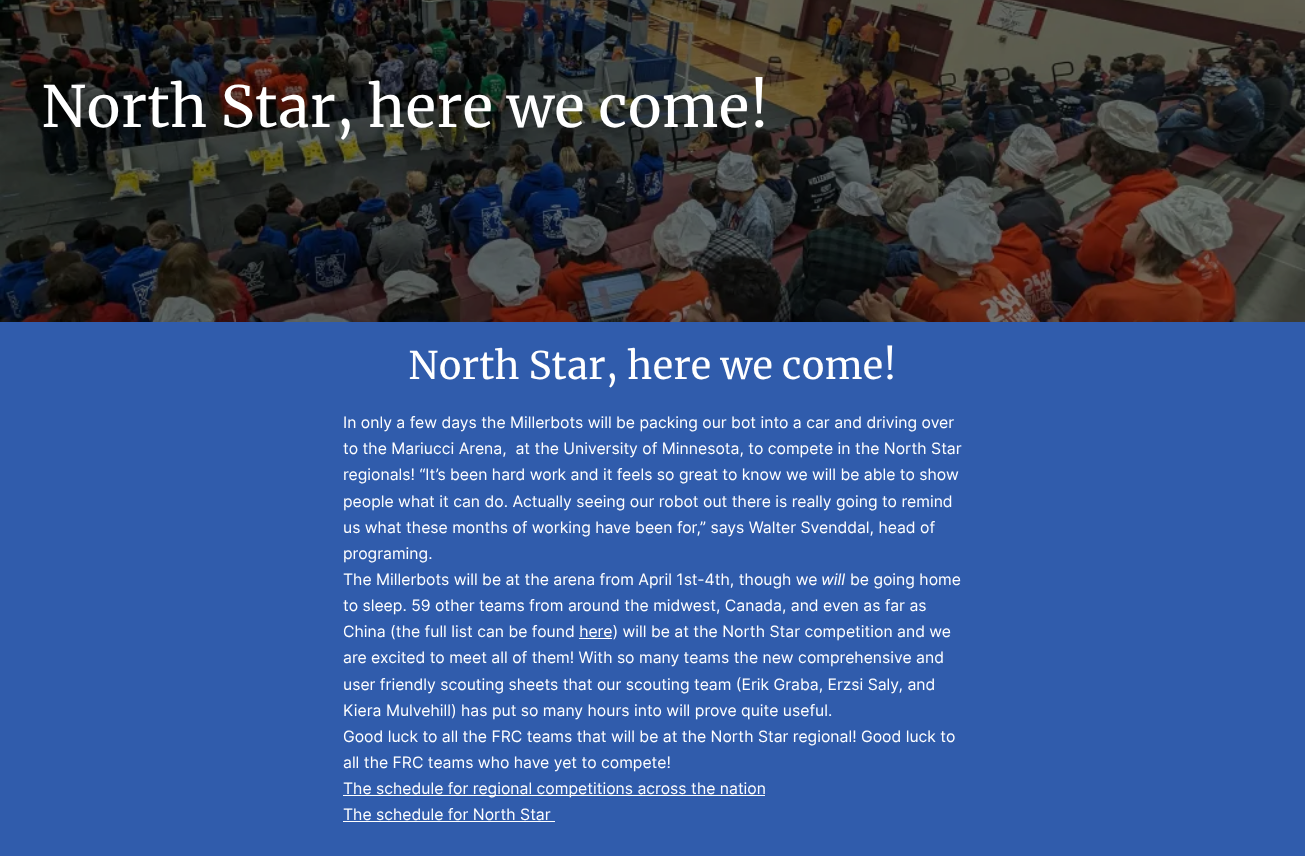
async function draw(canvas) {
  canvas.width = 1305;
  canvas.height = 856;
  const ctx = canvas.getContext('2d');
  ctx.miterLimit = 4;
  ctx.fontKerning = 'normal';
  function label(s, x, y, font, color) {
    ctx.font = font;
    ctx.fillStyle = color;
    ctx.fillText(s, x, y);
  }
  function rect(x, y, w, h, color) {
    ctx.fillStyle = color;
    ctx.fillRect(x, y, w, h);
  }
  async function image(src, x, y, w, h) {
    const img = new Image();
    img.src = src;
    await img.decode();
    ctx.drawImage(img, x, y, w, h);
  }

  rect(0, 0, 1305, 856, '#305cac');
  await image('assets/img1.png', 0, 0, 1305, 322);
  label('North Star, here we come!', 41, 127, '56.75px Merriweather', '#fff');
  label('North Star, here we come!', 408, 379, '38.1px Merriweather', '#fff');
  label('In only a few days the Millerbots will be packing our bot into a car and driving over', 343, 428, '15.75px Inter', '#fff');
  label('to the Mariucci Arena,  at the University of Minnesota, to compete in the North Star', 343, 454, '15.75px Inter', '#fff');
  label('regionals! “It’s been hard work and it feels so great to know we will be able to show', 343, 480, '15.75px Inter', '#fff');
  label('people what it can do. Actually seeing our robot out there is really going to remind', 343, 507, '15.75px Inter', '#fff');
  label('us what these months of working have been for,” says Walter Svenddal, head of', 343, 533, '15.75px Inter', '#fff');
  label('programing.', 343, 559, '15.75px Inter', '#fff');
  label('The Millerbots will be at the arena from April 1st-4th, though we', 343, 585, '15.75px Inter', '#fff');
  label('will', 821, 585, 'italic 15.75px Inter', '#fff');
  label('be going home', 850, 585, '15.75px Inter', '#fff');
  label('to sleep. 59 other teams from around the midwest, Canada, and even as far as', 343, 611, '15.75px Inter', '#fff');
  label('China (the full list can be found here) will be at the North Star competition and we', 343, 637, '15.75px Inter', '#fff');
  rect(579, 638, 33, 1, '#fff');
  label('are excited to meet all of them! With so many teams the new comprehensive and', 343, 663, '15.75px Inter', '#fff');
  label('user friendly scouting sheets that our scouting team (Erik Graba, Erzsi Saly, and', 343, 690, '15.75px Inter', '#fff');
  label('Kiera Mulvehill) has put so many hours into will prove quite useful.', 343, 716, '15.75px Inter', '#fff');
  label('Good luck to all the FRC teams that will be at the North Star regional! Good luck to', 343, 742, '15.75px Inter', '#fff');
  label('all the FRC teams who have yet to compete!', 343, 768, '15.75px Inter', '#fff');
  rect(343, 795, 422, 1, '#fff');
  label('The schedule for regional competitions across the nation', 343, 794, '15.75px Inter', '#fff');
  label('The schedule for North Star', 343, 820, '15.75px Inter', '#fff');
  rect(343, 821, 212, 1, '#fff');
}

draw(document.querySelector('canvas'));
